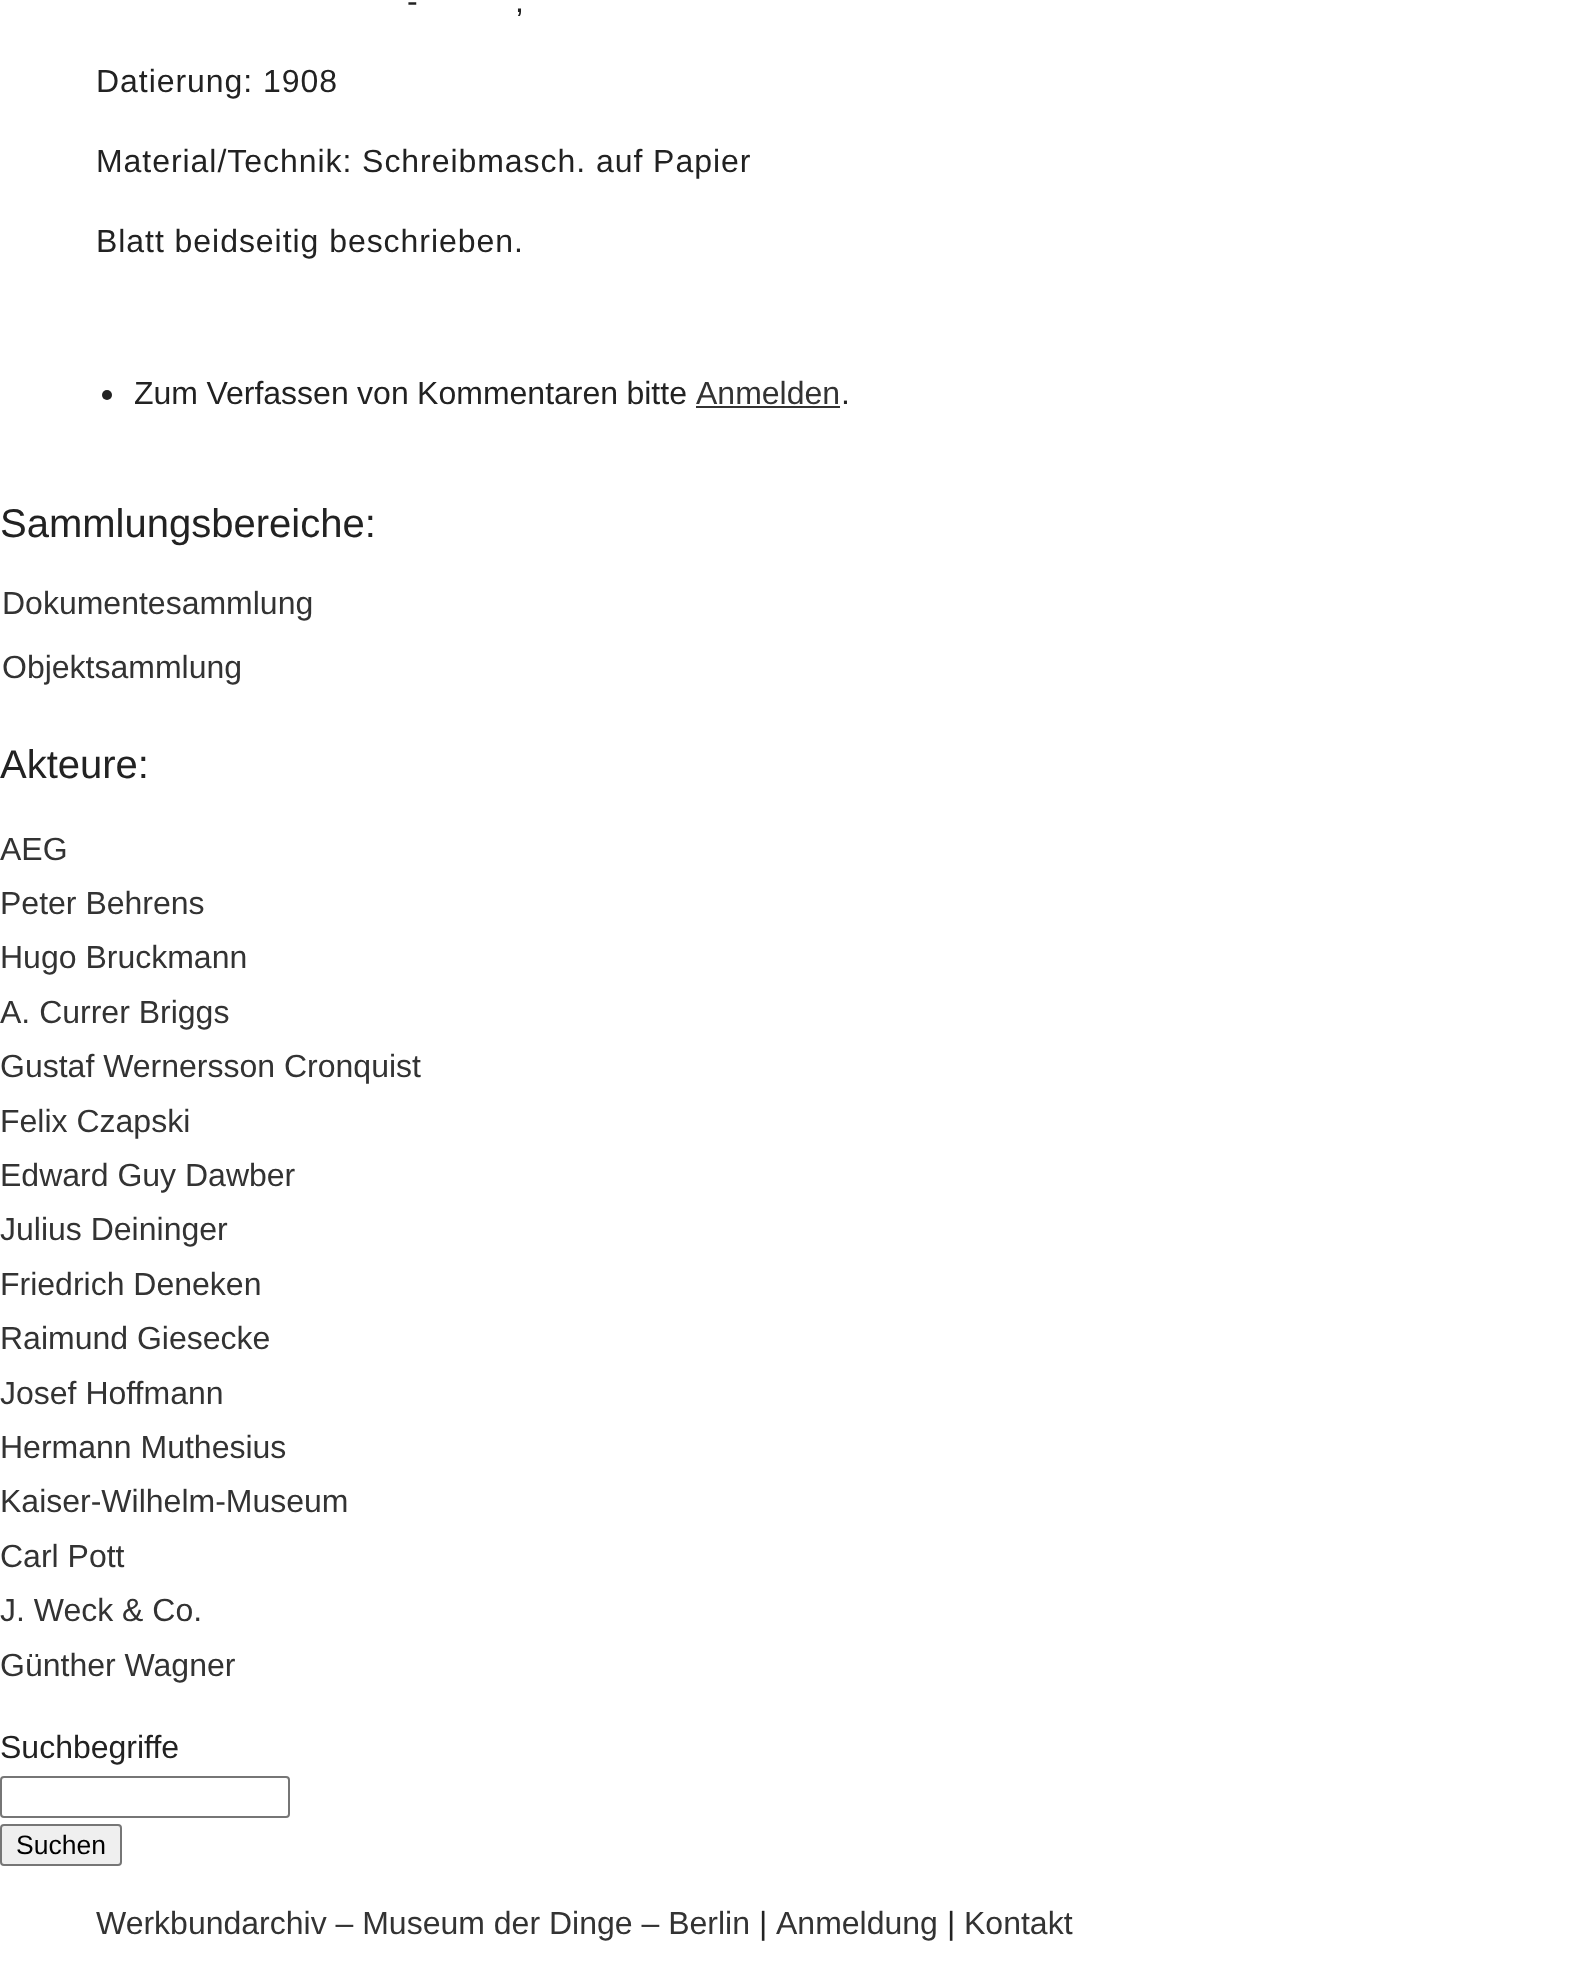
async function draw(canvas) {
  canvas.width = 1576;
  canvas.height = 1980;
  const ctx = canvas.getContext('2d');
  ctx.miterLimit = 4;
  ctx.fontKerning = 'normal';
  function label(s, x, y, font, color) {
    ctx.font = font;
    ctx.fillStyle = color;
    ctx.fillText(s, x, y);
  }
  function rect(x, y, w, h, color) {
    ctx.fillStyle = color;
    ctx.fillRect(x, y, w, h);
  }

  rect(0, 0, 1576, 1980, '#fff');
  ctx.letterSpacing = '0.95px';
  label('-', 407, 12, '32px Liberation Sans', '#222');
  label(',', 515, 12, '32px Liberation Sans', '#222');
  label('Datierung: 1908', 96, 92, '32px Liberation Sans', '#222');
  label('Material/Technik: Schreibmasch. auf Papier', 96, 172, '32px Liberation Sans', '#222');
  label('Blatt beidseitig beschrieben.', 96, 252, '32px Liberation Sans', '#222');
  ctx.beginPath();
  ctx.arc(107, 395, 5, 0, 2 * Math.PI);
  ctx.fill();
  ctx.letterSpacing = '0px';
  ctx.wordSpacing = '-0.5px';
  label('Zum Verfassen von Kommentaren bitte', 134, 404, '32px Liberation Sans', '#222');
  ctx.wordSpacing = '0px';
  label('Anmelden', 696, 404, '32px Liberation Sans', '#333');
  label('.', 841, 404, '32px Liberation Sans', '#222');
  rect(696, 406, 144, 2, '#333');
  label('Sammlungsbereiche:', 0, 537, '40px Liberation Sans', '#222');
  label('Dokumentesammlung', 2, 614, '32px Liberation Sans', '#333');
  label('Objektsammlung', 2, 678, '32px Liberation Sans', '#333');
  label('Akteure:', 0, 778, '40px Liberation Sans', '#222');
  label('AEG', 0, 860, '32px Liberation Sans', '#333');
  label('Peter Behrens', 0, 914, '32px Liberation Sans', '#333');
  label('Hugo Bruckmann', 0, 968, '32px Liberation Sans', '#333');
  label('A. Currer Briggs', 0, 1023, '32px Liberation Sans', '#333');
  label('Gustaf Wernersson Cronquist', 0, 1077, '32px Liberation Sans', '#333');
  label('Felix Czapski', 0, 1132, '32px Liberation Sans', '#333');
  label('Edward Guy Dawber', 0, 1186, '32px Liberation Sans', '#333');
  label('Julius Deininger', 0, 1240, '32px Liberation Sans', '#333');
  label('Friedrich Deneken', 0, 1295, '32px Liberation Sans', '#333');
  label('Raimund Giesecke', 0, 1349, '32px Liberation Sans', '#333');
  label('Josef Hoffmann', 0, 1404, '32px Liberation Sans', '#333');
  label('Hermann Muthesius', 0, 1458, '32px Liberation Sans', '#333');
  label('Kaiser-Wilhelm-Museum', 0, 1512, '32px Liberation Sans', '#333');
  label('Carl Pott', 0, 1567, '32px Liberation Sans', '#333');
  label('J. Weck & Co.', 0, 1621, '32px Liberation Sans', '#333');
  label('Günther Wagner', 0, 1676, '32px Liberation Sans', '#333');
  label('Suchbegriffe', 0, 1758, '32px Liberation Sans', '#222');
  ctx.beginPath();
  ctx.roundRect(1, 1777, 288, 40, 3);
  ctx.strokeStyle = '#767676';
  ctx.lineWidth = 2;
  ctx.stroke();
  ctx.fillStyle = '#efefef';
  ctx.beginPath();
  ctx.roundRect(1, 1825, 120, 40, 3);
  ctx.fill();
  ctx.stroke();
  label('Suchen', 16, 1854, '26.5px Liberation Sans', '#000');
  label('Werkbundarchiv – Museum der Dinge – Berlin', 96, 1934, '32px Liberation Sans', '#333');
  label('|', 759, 1934, '32px Liberation Sans', '#222');
  label('Anmeldung', 776, 1934, '32px Liberation Sans', '#333');
  label('|', 947, 1934, '32px Liberation Sans', '#222');
  label('Kontakt', 964, 1934, '32px Liberation Sans', '#333');
}

draw(document.querySelector('canvas'));
